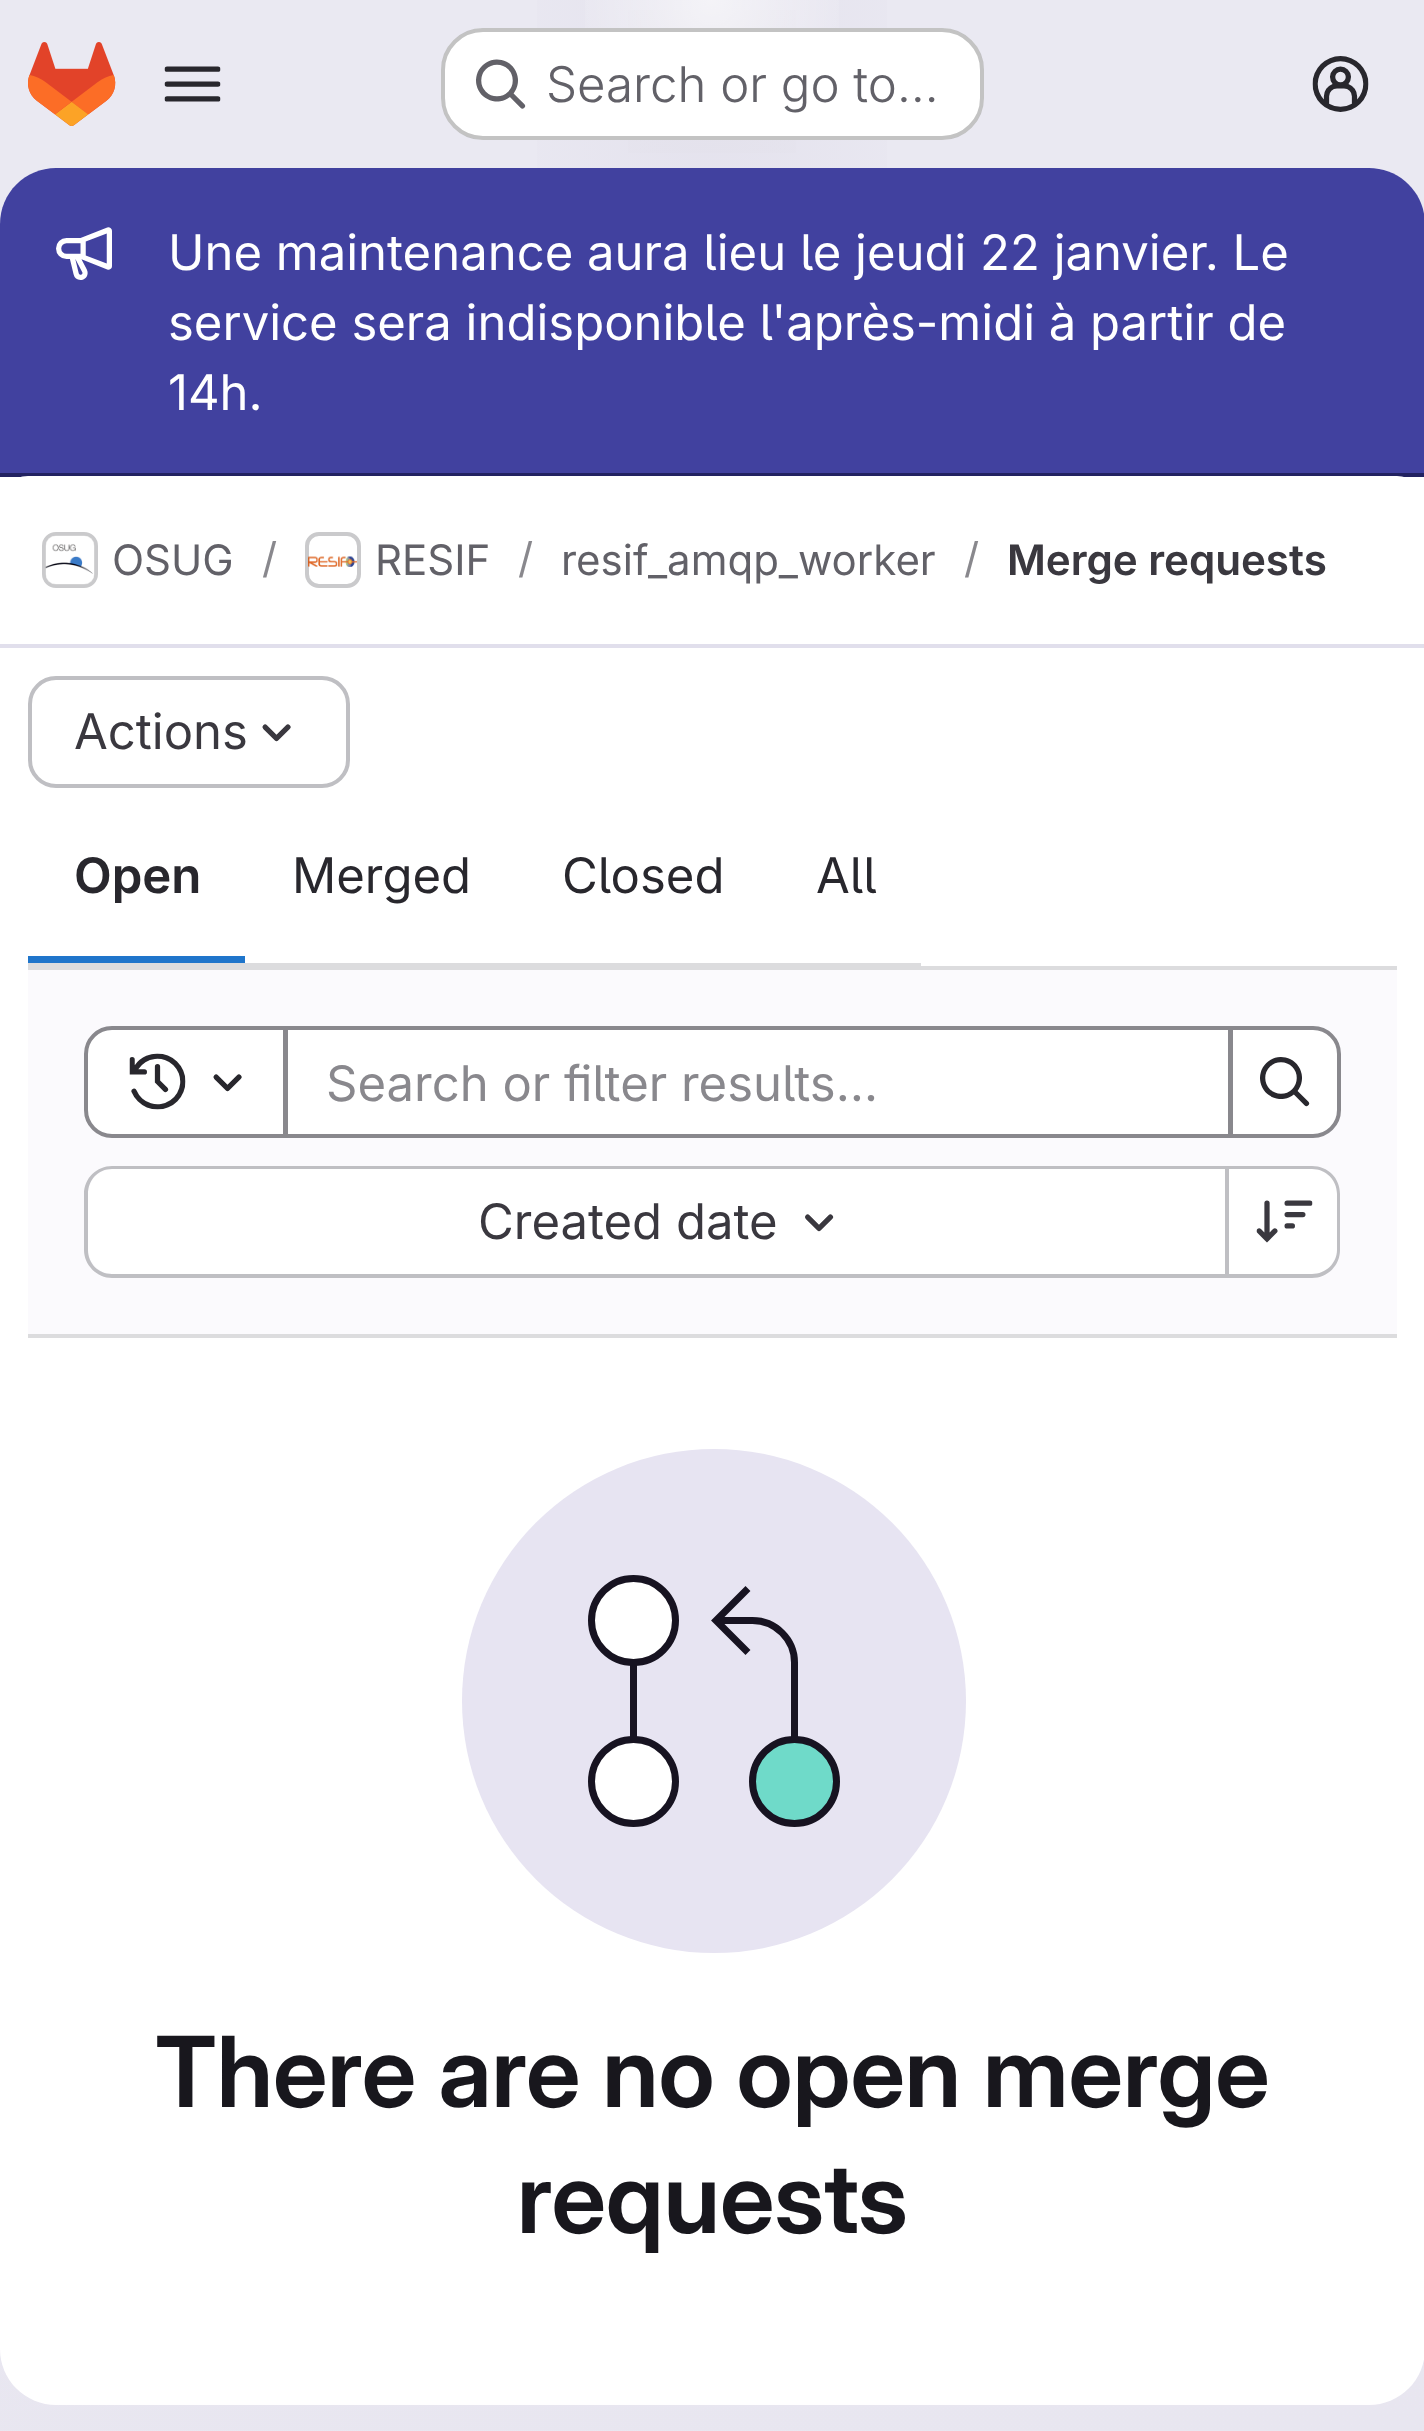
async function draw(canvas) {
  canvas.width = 1424;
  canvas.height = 2431;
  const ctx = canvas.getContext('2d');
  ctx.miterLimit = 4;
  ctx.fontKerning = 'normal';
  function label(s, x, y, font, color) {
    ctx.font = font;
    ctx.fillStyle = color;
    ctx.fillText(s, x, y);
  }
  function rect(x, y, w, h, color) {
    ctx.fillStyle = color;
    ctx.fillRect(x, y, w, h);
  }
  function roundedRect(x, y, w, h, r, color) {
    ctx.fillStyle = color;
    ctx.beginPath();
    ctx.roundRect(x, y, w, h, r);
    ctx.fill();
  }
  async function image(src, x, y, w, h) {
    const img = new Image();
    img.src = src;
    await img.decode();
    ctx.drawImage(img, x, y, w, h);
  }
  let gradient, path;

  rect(0, 0, 1424, 2431, '#fff');
  gradient = ctx.createLinearGradient(942, 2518, 483, -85);
  gradient.addColorStop(0, '#e8e6f0');
  gradient.addColorStop(0.7, '#eae9f2');
  ctx.fillStyle = gradient;
  ctx.fillRect(0, 0, 1424, 2431);
  gradient = ctx.createRadialGradient(712, 0, 0, 712, 0, 712);
  gradient.addColorStop(0, '#e4e2ed');
  gradient.addColorStop(0.34, '#e4e2ed00');
  ctx.fillStyle = gradient;
  ctx.beginPath();
  ctx.rect(537, 0, 350, 168);
  ctx.save();
  ctx.clip();
  ctx.scale(1, 2433 / 712);
  ctx.fillRect(0, 0, 1424, 712);
  ctx.restore();
  gradient = ctx.createRadialGradient(712, 0, 0, 712, 0, 712);
  gradient.addColorStop(0, '#e4e2ec');
  gradient.addColorStop(0.25, '#e4e2ec00');
  ctx.fillStyle = gradient;
  ctx.beginPath();
  ctx.rect(628, 10, 168, 143);
  ctx.save();
  ctx.clip();
  ctx.scale(1, 2433 / 712);
  ctx.fillRect(0, 0, 1424, 712);
  ctx.restore();
  gradient = ctx.createRadialGradient(712, 0, 0, 712, 0, 2535);
  gradient.addColorStop(0, '#ffffff99');
  gradient.addColorStop(0.06, '#ffffff00');
  ctx.fillStyle = gradient;
  ctx.fillRect(585, 0, 254, 129);
  await image('assets/img1.png', 28, 42, 88, 84);
  await image('assets/img2.png', 164, 66, 57, 36);
  roundedRect(441, 28, 543, 112, 42, '#fff');
  ctx.beginPath();
  ctx.roundRect(443, 30, 539, 108, 40);
  ctx.strokeStyle = '#0505063d';
  ctx.lineWidth = 4;
  ctx.stroke();
  await image('assets/img3.png', 476, 59, 50, 50);
  label('Search or go to…', 546, 102, '300 49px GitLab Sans', '#626168');
  await image('assets/img4.png', 1312, 56, 57, 56);
  roundedRect(0, 168, 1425, 2237, 56, '#fff');
  ctx.fillStyle = '#41419f';
  path = new Path2D('M56 168H1369C1400 168 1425 193 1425 224V476H0V224C0 193 25 168 56 168Z');
  ctx.fill(path);
  rect(0, 473, 1424, 4, '#222261');
  await image('assets/img5.png', 56, 227, 56, 53);
  label('Une maintenance aura lieu le jeudi 22 janvier. Le', 168, 270, '49px GitLab Sans', '#fff');
  label('service sera indisponible l\'après-midi à partir de', 168, 340, '49px GitLab Sans', '#fff');
  label('14h.', 168, 410, '49px GitLab Sans', '#fff');
  path = new Path2D('M28 476H1397C1412.5 476 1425 488.5 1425 504V648H0V504C0 488.5 12.5 476 28 476Z');
  ctx.fill(path);
  rect(0, 644, 1424, 4, '#e1dfec');
  ctx.beginPath();
  ctx.roundRect(44, 534, 52, 52, 12);
  ctx.strokeStyle = '#dcdcde';
  ctx.stroke();
  await image('assets/img6.png', 45, 535, 50, 50);
  ctx.beginPath();
  ctx.roundRect(44, 534, 52, 52, 12);
  ctx.strokeStyle = '#05050614';
  ctx.stroke();
  label('OSUG', 112, 575, '42px GitLab Sans', '#626168');
  label('/', 262, 573, '42px GitLab Sans', '#89888d');
  ctx.beginPath();
  ctx.roundRect(307, 534, 52, 52, 12);
  ctx.strokeStyle = '#dcdcde';
  ctx.stroke();
  await image('assets/img7.png', 308, 556, 49, 11);
  ctx.beginPath();
  ctx.roundRect(307, 534, 52, 52, 12);
  ctx.strokeStyle = '#05050614';
  ctx.stroke();
  label('RESIF', 375, 575, '42px GitLab Sans', '#626168');
  label('/', 518, 573, '42px GitLab Sans', '#89888d');
  label('resif_amqp_worker', 561, 575, '42px GitLab Sans', '#626168');
  label('/', 964, 573, '42px GitLab Sans', '#89888d');
  label('Merge requests', 1007, 575, '600 42px "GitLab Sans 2"', '#3a383f');
  rect(28, 966, 1369, 4, '#dcdcde');
  ctx.beginPath();
  ctx.roundRect(30, 678, 318, 108, 26);
  ctx.strokeStyle = '#bfbfc3';
  ctx.stroke();
  label('Actions', 74, 749, '49px GitLab Sans', '#3a383f');
  await image('assets/img8.png', 262, 724, 29, 18);
  rect(28, 963, 893, 3, '#dcdcde');
  label('Open', 74, 893, '600 49px "GitLab Sans 2"', '#28272d');
  rect(28, 956, 217, 7, '#1f75cb');
  label('Merged', 292, 893, '49px GitLab Sans', '#28272d');
  label('Closed', 562, 893, '49px GitLab Sans', '#28272d');
  label('All', 816, 893, '49px GitLab Sans', '#28272d');
  rect(28, 970, 1369, 364, '#fbfafd');
  rect(28, 1334, 1369, 4, '#dcdcde');
  ctx.fillStyle = '#fff';
  ctx.beginPath();
  ctx.rect(286, 1028, 944, 108);
  ctx.fill();
  ctx.strokeStyle = '#89888d';
  ctx.stroke();
  ctx.beginPath();
  ctx.roundRect(86, 1028, 199, 108, [26, 0, 0, 26]);
  ctx.fill();
  ctx.stroke();
  await image('assets/img9.png', 129, 1053, 57, 57);
  await image('assets/img10.png', 213, 1074, 29, 18);
  label('Search or filter results…', 326, 1101, '49px GitLab Sans', '#89888d');
  ctx.fillStyle = '#fff';
  ctx.beginPath();
  ctx.roundRect(1231, 1028, 108, 108, [0, 26, 26, 0]);
  ctx.fill();
  ctx.stroke();
  await image('assets/img11.png', 1260, 1057, 50, 50);
  ctx.beginPath();
  ctx.roundRect(88, 1169, 1137, 105, [25, 0, 0, 25]);
  ctx.fill();
  ctx.fillStyle = '#bfbfc3';
  path = new Path2D('M112 1166H1225V1278H112C97 1278 84 1265 84 1250V1194C84 1178 97 1166 112 1166ZM112 1169H1225V1274H112C98 1274 88 1263 88 1250V1194C88 1180 98 1169 112 1169Z');
  ctx.fill(path, 'evenodd');
  label('Created date', 478, 1239, '49px GitLab Sans', '#3a383f');
  await image('assets/img12.png', 805, 1214, 29, 18);
  ctx.fillStyle = '#fff';
  ctx.beginPath();
  ctx.roundRect(1229, 1169, 108, 105, [0, 25, 25, 0]);
  ctx.fill();
  ctx.fillStyle = '#bfbfc3';
  path = new Path2D('M1228 1166H1312C1328 1166 1340 1178 1340 1194V1250C1340 1265 1328 1278 1312 1278H1228ZM1228 1169H1312C1326 1169 1337 1180 1337 1194V1250C1337 1263 1326 1274 1312 1274H1228Z');
  ctx.fill(path, 'evenodd');
  rect(1225, 1166, 4, 112, '#bfbfc3');
  await image('assets/img13.png', 1256, 1200, 57, 43);
  ctx.fillStyle = '#e7e4f2';
  ctx.beginPath();
  ctx.arc(714, 1701, 252, 0, 2 * Math.PI);
  ctx.fill();
  ctx.fillStyle = '#fff';
  ctx.beginPath();
  ctx.arc(633.5, 1781.5, 42, 0, 2 * Math.PI);
  ctx.fill();
  ctx.strokeStyle = '#171321';
  ctx.lineWidth = 7;
  ctx.stroke();
  rect(630, 1659, 7, 84, '#171321');
  ctx.fillStyle = '#fff';
  ctx.beginPath();
  ctx.arc(633.5, 1620.5, 42, 0, 2 * Math.PI);
  ctx.fill();
  ctx.stroke();
  ctx.fillStyle = '#6fdac9';
  ctx.beginPath();
  ctx.arc(794.5, 1781.5, 42, 0, 2 * Math.PI);
  ctx.fill();
  ctx.stroke();
  path = new Path2D('M794.5 1739.5V1662.5C794.5 1639.5 775.5 1620.5 752.5 1620.5H721');
  ctx.lineCap = 'square';
  ctx.stroke(path);
  path = new Path2D('M745.5 1591L716 1620.5L745.5 1650');
  ctx.stroke(path);
  label('There are no open merge', 155, 2107, '600 98px GitLab Sans', '#18171d');
  label('requests', 517, 2233, '600 98px GitLab Sans', '#18171d');
}

draw(document.querySelector('canvas'));
